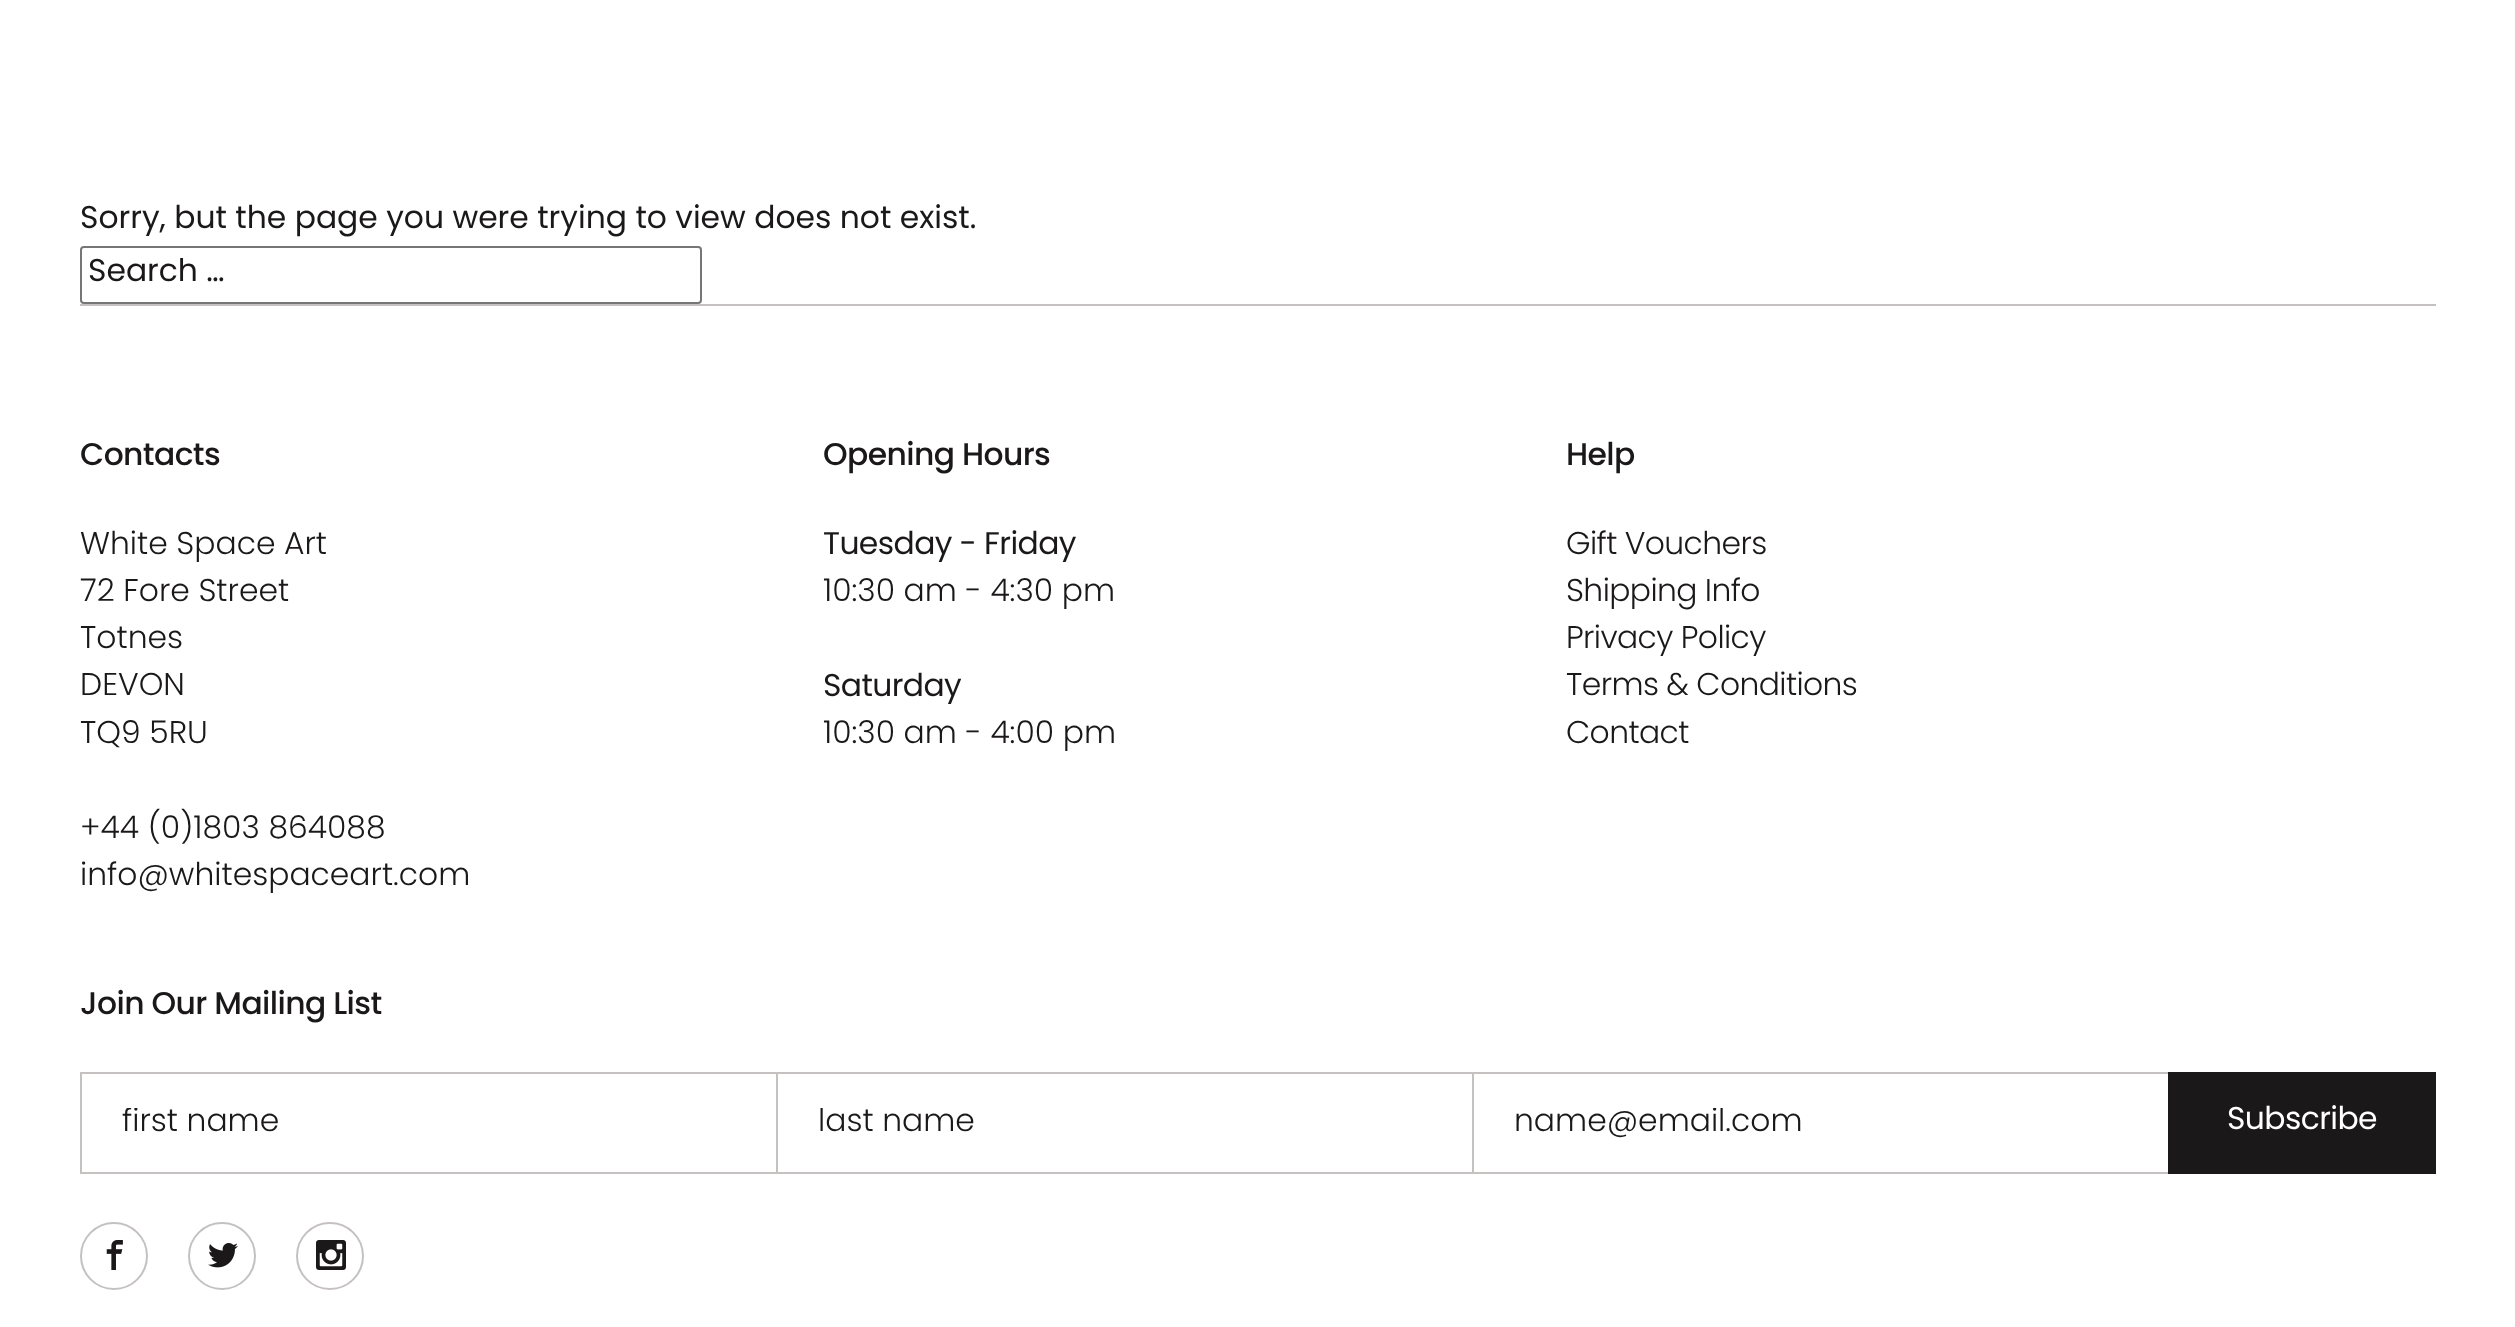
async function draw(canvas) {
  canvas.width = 2515;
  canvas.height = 1327;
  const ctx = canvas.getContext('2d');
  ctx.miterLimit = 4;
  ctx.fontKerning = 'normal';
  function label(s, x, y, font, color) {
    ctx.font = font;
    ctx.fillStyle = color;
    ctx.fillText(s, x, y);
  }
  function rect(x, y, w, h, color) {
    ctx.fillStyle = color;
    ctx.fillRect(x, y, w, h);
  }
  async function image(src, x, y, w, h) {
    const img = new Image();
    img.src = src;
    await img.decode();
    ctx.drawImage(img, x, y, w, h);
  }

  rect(0, 0, 2515, 1327, '#fff');
  label('Sorry, but the page you were trying to view does not exist.', 80, 228, '31.4px Poppins', '#1a1818');
  rect(80, 304, 2356, 2, '#c5c1c1');
  ctx.beginPath();
  ctx.roundRect(81, 247, 620, 56, 3);
  ctx.strokeStyle = '#767676';
  ctx.lineWidth = 2;
  ctx.stroke();
  ctx.save();
  ctx.beginPath();
  ctx.rect(88, 258, 598, 32);
  ctx.clip();
  label('Search …', 88, 281, '31.4px Poppins', '#1a1818');
  ctx.restore();
  ctx.letterSpacing = '-0.6px';
  label('Contacts', 80, 465, '500 31.4px Poppins', '#1a1818');
  ctx.letterSpacing = '0px';
  label('White Space Art', 80, 554, '300 31.4px Poppins', '#1a1818');
  label('72 Fore Street', 80, 601, '300 31.4px Poppins', '#1a1818');
  label('Totnes', 80, 648, '300 31.4px Poppins', '#1a1818');
  label('DEVON', 80, 695, '300 31.4px Poppins', '#1a1818');
  label('TQ9 5RU', 80, 743, '300 31.4px Poppins', '#1a1818');
  label('+44 (0)1803 864088', 80, 838, '300 31.4px Poppins', '#1a1818');
  label('info@whitespaceart.com', 80, 885, '300 31.4px Poppins', '#1a1818');
  ctx.letterSpacing = '-0.6px';
  label('Opening Hours', 823, 465, '500 31.4px Poppins', '#1a1818');
  label('Tuesday - Friday', 823, 554, '31.4px Poppins', '#1a1818');
  ctx.letterSpacing = '0px';
  label('10:30 am - 4:30 pm', 823, 601, '300 31.4px Poppins', '#1a1818');
  ctx.letterSpacing = '-0.6px';
  label('Saturday', 823, 696, '31.4px Poppins', '#1a1818');
  ctx.letterSpacing = '0px';
  label('10:30 am - 4:00 pm', 823, 743, '300 31.4px Poppins', '#1a1818');
  ctx.letterSpacing = '-0.6px';
  label('Help', 1566, 465, '500 31.4px Poppins', '#1a1818');
  label('Gift Vouchers', 1566, 554, '300 31.4px Poppins', '#1a1818');
  label('Shipping Info', 1566, 601, '300 31.4px Poppins', '#1a1818');
  label('Privacy Policy', 1566, 648, '300 31.4px Poppins', '#1a1818');
  label('Terms & Conditions', 1566, 695, '300 31.4px Poppins', '#1a1818');
  label('Contact', 1566, 743, '300 31.4px Poppins', '#1a1818');
  label('Join Our Mailing List', 80, 1014, '500 31.4px Poppins', '#1a1818');
  rect(80, 1072, 2088, 2, '#c5c1c1');
  rect(80, 1172, 2088, 2, '#c5c1c1');
  rect(80, 1072, 2, 102, '#c5c1c1');
  ctx.save();
  ctx.beginPath();
  ctx.rect(122, 1108, 614, 32);
  ctx.clip();
  ctx.letterSpacing = '0px';
  label('first name', 122, 1131, '300 31.4px Poppins', '#1a1818');
  ctx.restore();
  rect(776, 1072, 2, 102, '#c5c1c1');
  ctx.save();
  ctx.beginPath();
  ctx.rect(818, 1108, 614, 32);
  ctx.clip();
  ctx.letterSpacing = '0px';
  label('last name', 818, 1131, '300 31.4px Poppins', '#1a1818');
  ctx.restore();
  rect(1472, 1072, 2, 102, '#c5c1c1');
  ctx.save();
  ctx.beginPath();
  ctx.rect(1514, 1108, 614, 32);
  ctx.clip();
  ctx.letterSpacing = '0px';
  label('name@email.com', 1514, 1131, '300 31.4px Poppins', '#1a1818');
  ctx.restore();
  rect(2168, 1072, 268, 102, '#1a1818');
  label('Subscribe', 2227, 1129, '31.4px Poppins', '#fff');
  ctx.beginPath();
  ctx.arc(114, 1256, 33, 0, 2 * Math.PI);
  ctx.strokeStyle = '#c5c1c1';
  ctx.stroke();
  await image('assets/img1.png', 106, 1240, 17, 30);
  ctx.beginPath();
  ctx.arc(222, 1256, 33, 0, 2 * Math.PI);
  ctx.stroke();
  await image('assets/img2.png', 208, 1243, 30, 25);
  ctx.beginPath();
  ctx.arc(330, 1256, 33, 0, 2 * Math.PI);
  ctx.stroke();
  await image('assets/img3.png', 316, 1240, 30, 30);
}

draw(document.querySelector('canvas'));
